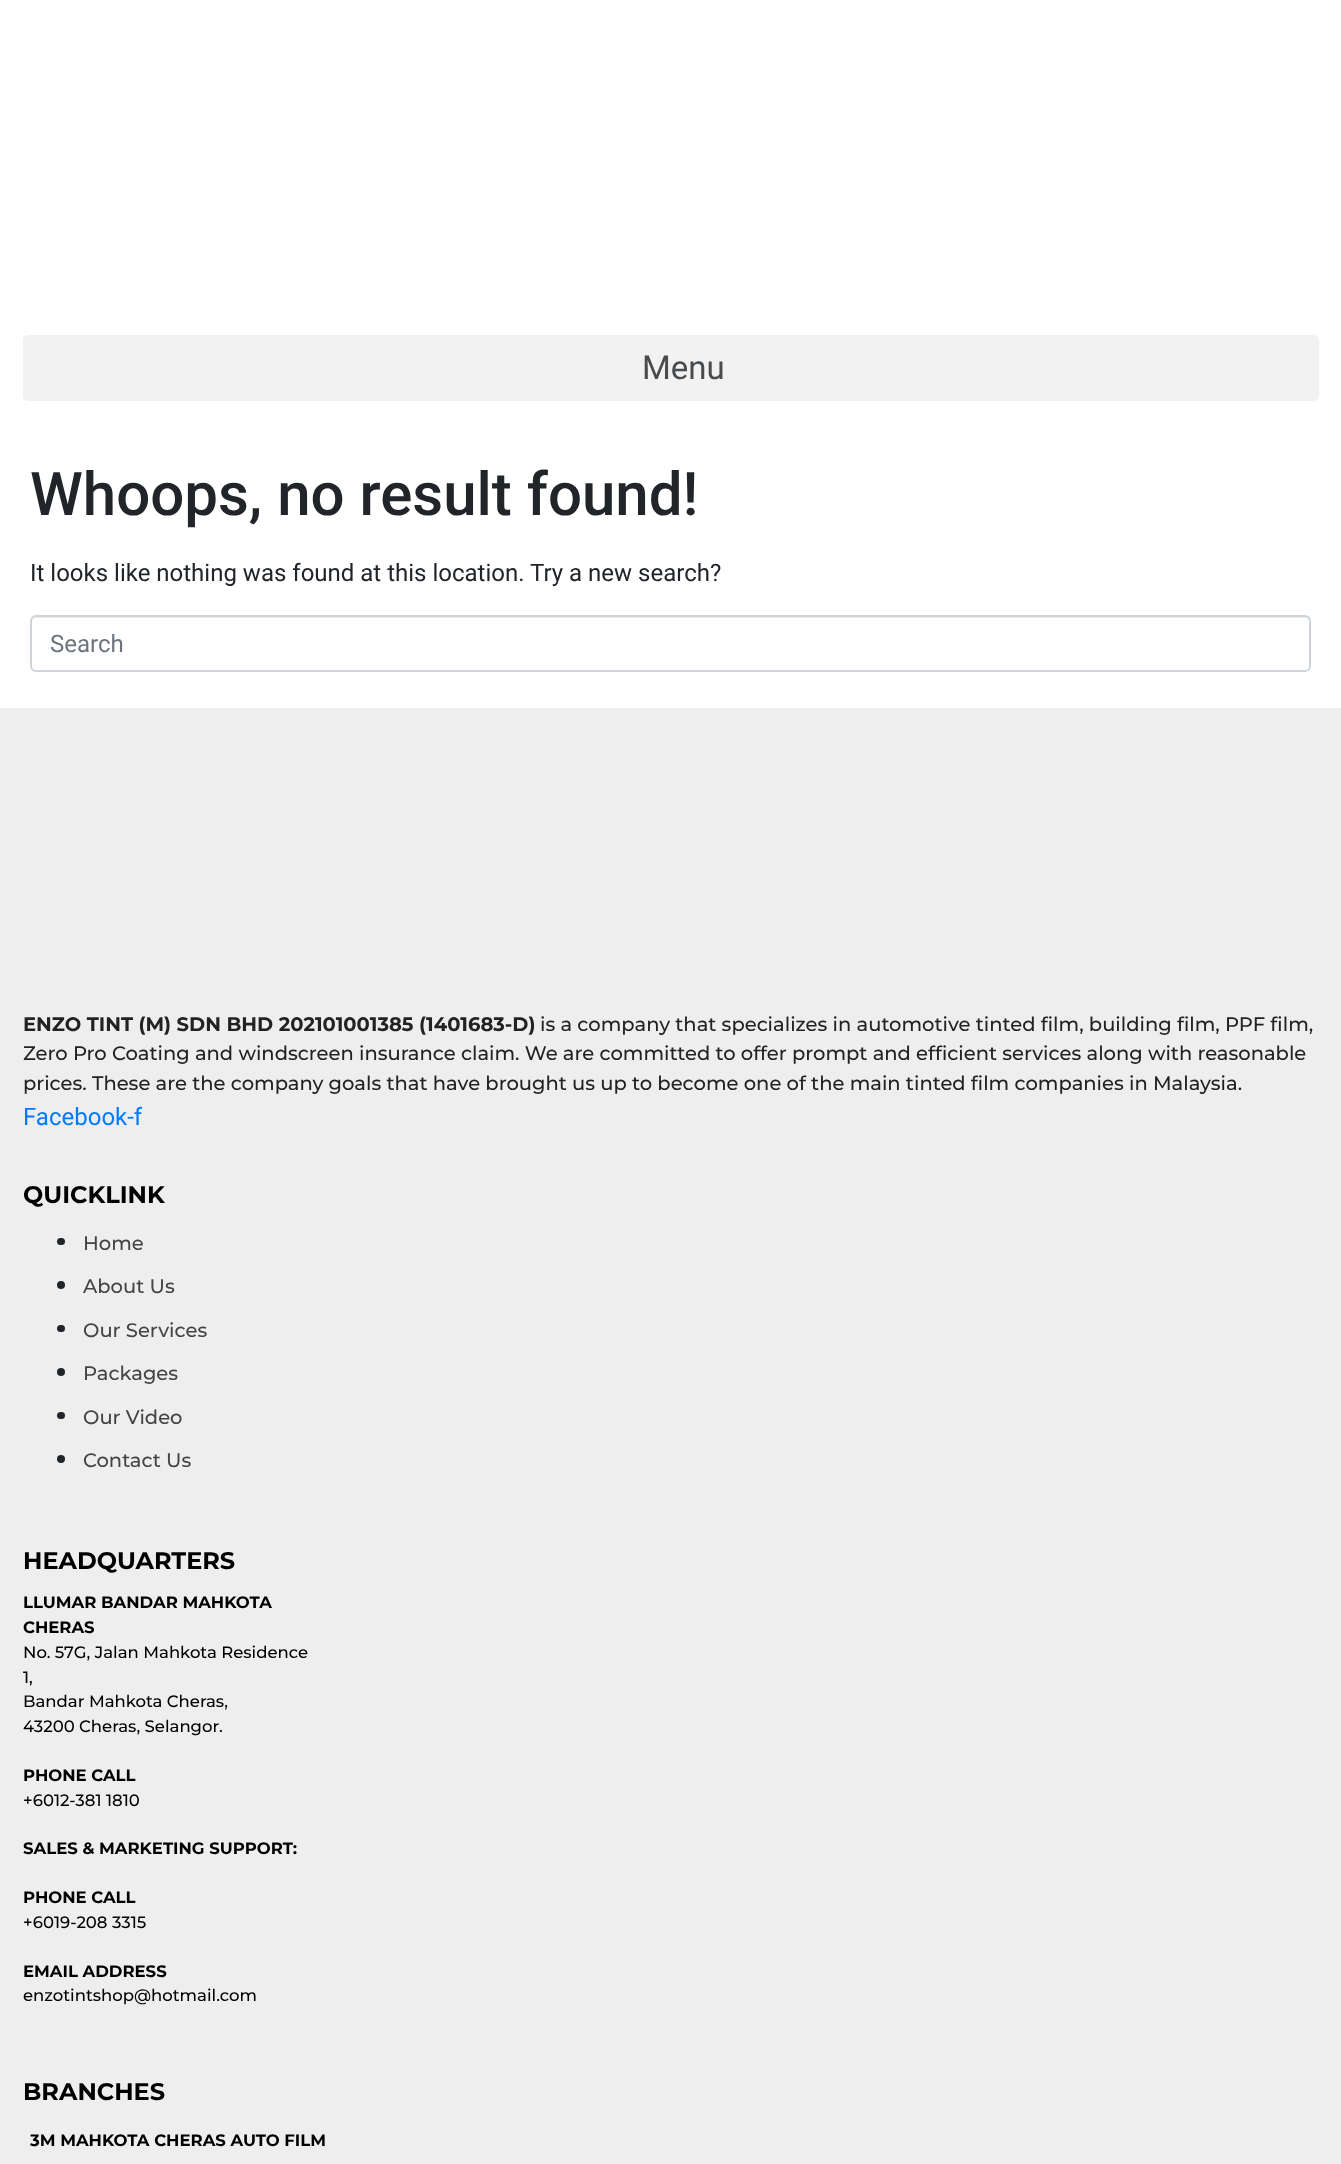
async function draw(canvas) {
  canvas.width = 1341;
  canvas.height = 2164;
  const ctx = canvas.getContext('2d');
  ctx.miterLimit = 4;
  ctx.fontKerning = 'normal';
  function label(s, x, y, font, color) {
    ctx.font = font;
    ctx.fillStyle = color;
    ctx.fillText(s, x, y);
  }
  function rect(x, y, w, h, color) {
    ctx.fillStyle = color;
    ctx.fillRect(x, y, w, h);
  }
  function roundedRect(x, y, w, h, r, color) {
    ctx.fillStyle = color;
    ctx.beginPath();
    ctx.roundRect(x, y, w, h, r);
    ctx.fill();
  }
  let path;

  rect(0, 0, 1341, 2164, '#fff');
  roundedRect(23, 335, 1296, 66, 5, '#f2f2f2');
  label('Menu', 642, 379, '33px Roboto', '#494c4f');
  label('Whoops, no result found!', 30, 515, '500 60px Roboto', '#212529');
  label('It looks like nothing was found at this location. Try a new search?', 30, 581, '24px Roboto', '#212529');
  ctx.fillStyle = '#ececec';
  path = new Path2D('M36 618H1305C1307 618 1310 620 1310 622C1310 619 1308 617 1305 617H37C34 617 32 619 32 622C32 620 34 618 36 618Z');
  ctx.fill(path);
  ctx.beginPath();
  ctx.roundRect(31, 616, 1279, 55, 5);
  ctx.strokeStyle = '#ced4da';
  ctx.lineWidth = 2;
  ctx.stroke();
  label('Search', 50, 652, '24px Roboto', '#6c757d');
  rect(0, 708, 1341, 1456, '#eee');
  label('ENZO TINT (M) SDN BHD 202101001385 (1401683-D)', 23, 1031, 'bold 19.5px Montserrat', '#222');
  label('is a company that specializes in automotive tinted film, building film, PPF film,', 540, 1031, '500 19.5px Montserrat', '#222');
  label('Zero Pro Coating and windscreen insurance claim. We are committed to offer prompt and efficient services along with reasonable', 23, 1060, '500 19.5px Montserrat', '#222');
  label('prices. These are the company goals that have brought us up to become one of the main tinted film companies in Malaysia.', 23, 1090, '500 19.5px Montserrat', '#222');
  label('Facebook-f', 23, 1125, '24px Roboto', '#007bff');
  label('QUICKLINK', 23, 1203, 'bold 24px Montserrat', '#000');
  roundedRect(57, 1238, 8, 7, 3.5, '#212529');
  label('Home', 83, 1250, '500 19.5px Montserrat', '#444');
  ctx.fillStyle = '#212529';
  ctx.beginPath();
  ctx.arc(61, 1285, 4, 0, 2 * Math.PI);
  ctx.fill();
  label('About Us', 83, 1293, '500 19.5px Montserrat', '#444');
  roundedRect(57, 1325, 8, 7, 3.5, '#212529');
  label('Our Services', 83, 1337, '500 19.5px Montserrat', '#444');
  ctx.fillStyle = '#212529';
  ctx.beginPath();
  ctx.arc(61, 1372, 4, 0, 2 * Math.PI);
  ctx.fill();
  label('Packages', 83, 1380, '500 19.5px Montserrat', '#444');
  roundedRect(57, 1412, 8, 7, 3.5, '#212529');
  label('Our Video', 83, 1424, '500 19.5px Montserrat', '#444');
  ctx.fillStyle = '#212529';
  ctx.beginPath();
  ctx.arc(61, 1459, 4, 0, 2 * Math.PI);
  ctx.fill();
  label('Contact Us', 83, 1467, '500 19.5px Montserrat', '#444');
  label('HEADQUARTERS', 23, 1569, 'bold 24px Montserrat', '#000');
  label('LLUMAR BANDAR MAHKOTA', 23, 1608, 'bold 16.5px Montserrat', '#000');
  label('CHERAS', 23, 1633, 'bold 16.5px Montserrat', '#000');
  label('No. 57G, Jalan Mahkota Residence', 23, 1658, '500 16.5px Montserrat', '#000');
  label('1,', 23, 1683, '500 16.5px Montserrat', '#000');
  label('Bandar Mahkota Cheras,', 23, 1707, '500 16.5px Montserrat', '#000');
  label('43200 Cheras, Selangor.', 23, 1732, '500 16.5px Montserrat', '#000');
  label('PHONE CALL', 23, 1781, 'bold 16.5px Montserrat', '#000');
  label('+6012-381 1810', 23, 1806, '500 16.5px Montserrat', '#000');
  label('SALES & MARKETING SUPPORT:', 23, 1854, 'bold 16.5px Montserrat', '#000');
  label('PHONE CALL', 23, 1903, 'bold 16.5px Montserrat', '#000');
  label('+6019-208 3315', 23, 1928, '500 16.5px Montserrat', '#000');
  label('EMAIL ADDRESS', 23, 1977, 'bold 16.5px Montserrat', '#000');
  label('enzotintshop@hotmail.com', 23, 2001, '500 16.5px Montserrat', '#000');
  label('BRANCHES', 23, 2100, 'bold 24px Montserrat', '#000');
  label('3M MAHKOTA CHERAS AUTO FILM', 30, 2146, 'bold 16.5px Montserrat', '#000');
}

draw(document.querySelector('canvas'));
